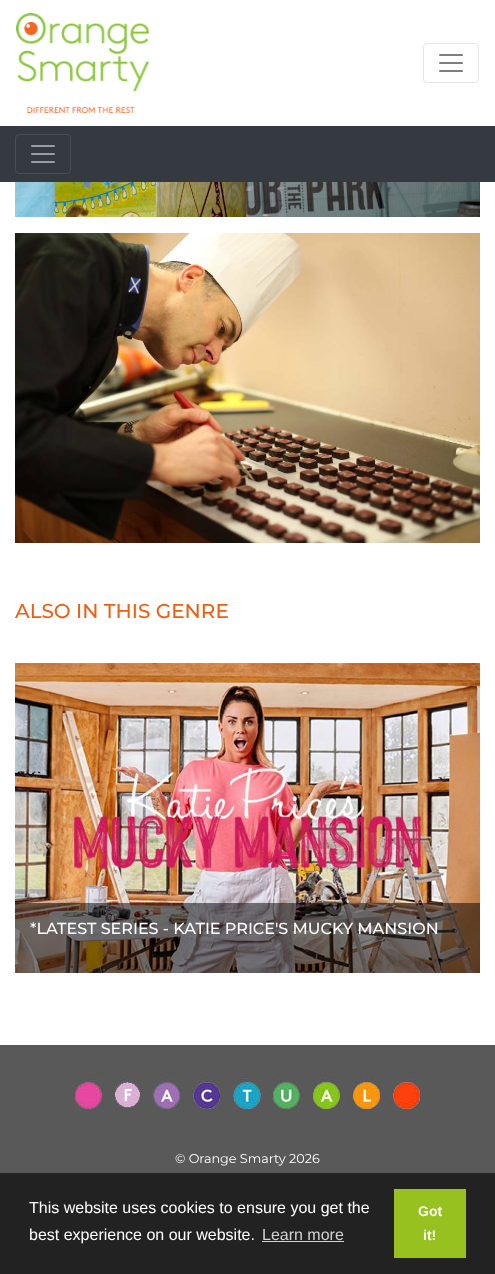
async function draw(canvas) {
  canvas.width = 495;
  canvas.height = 1274;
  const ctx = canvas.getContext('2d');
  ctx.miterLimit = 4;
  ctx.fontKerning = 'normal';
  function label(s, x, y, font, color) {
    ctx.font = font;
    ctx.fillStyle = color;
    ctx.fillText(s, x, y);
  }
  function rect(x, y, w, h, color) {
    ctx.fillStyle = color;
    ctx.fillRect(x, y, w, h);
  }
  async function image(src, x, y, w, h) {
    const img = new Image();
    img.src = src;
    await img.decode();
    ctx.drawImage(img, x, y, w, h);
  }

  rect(0, 0, 495, 1274, '#fff');
  await image('assets/img1.png', 16, 13, 133, 100);
  ctx.beginPath();
  ctx.roundRect(423.5, 43.5, 55, 39, 3.5);
  ctx.strokeStyle = '#e6e6e6';
  ctx.stroke();
  await image('assets/img2.png', 439, 54, 24, 18);
  rect(0, 126, 495, 56, '#343a40');
  ctx.beginPath();
  ctx.roundRect(15.5, 134.5, 55, 39, 3.5);
  ctx.strokeStyle = '#484e53';
  ctx.stroke();
  await image('assets/img3.png', 31, 145, 24, 18);
  await image('assets/img4.png', 15, 182, 465, 35);
  await image('assets/img5.png', 15, 233, 465, 310);
  label('ALSO IN THIS GENRE', 15, 618, '500 20px Montserrat', '#eb6014');
  await image('assets/img6.png', 15, 663, 465, 310);
  rect(15, 903, 465, 70, '#00000080');
  label('*LATEST SERIES - KATIE PRICE\'S MUCKY MANSION', 30, 934, '500 16px Montserrat', '#fff');
  rect(0, 1045, 495, 128, '#595959');
  await image('assets/img7.png', 71, 1077, 352, 32);
  label('© Orange Smarty 2026', 175, 1163, '12.75px Montserrat', '#fff');
  rect(0, 1173, 495, 101, '#222');
  label('This website uses cookies to ensure you get the', 29, 1213, '16px Liberation Sans', '#fff');
  label('best experience on our website.', 29, 1240, '16px Liberation Sans', '#fff');
  label('Learn more', 262, 1240, '16px Liberation Sans', '#d3d3d3');
  rect(262, 1241, 82, 1, '#d3d3d3');
  rect(394, 1189, 72, 69, '#96c11f');
  label('Got', 418, 1216, 'bold 14px Liberation Sans', '#fff');
  label('it!', 423, 1240, 'bold 14px Liberation Sans', '#fff');
}

draw(document.querySelector('canvas'));
